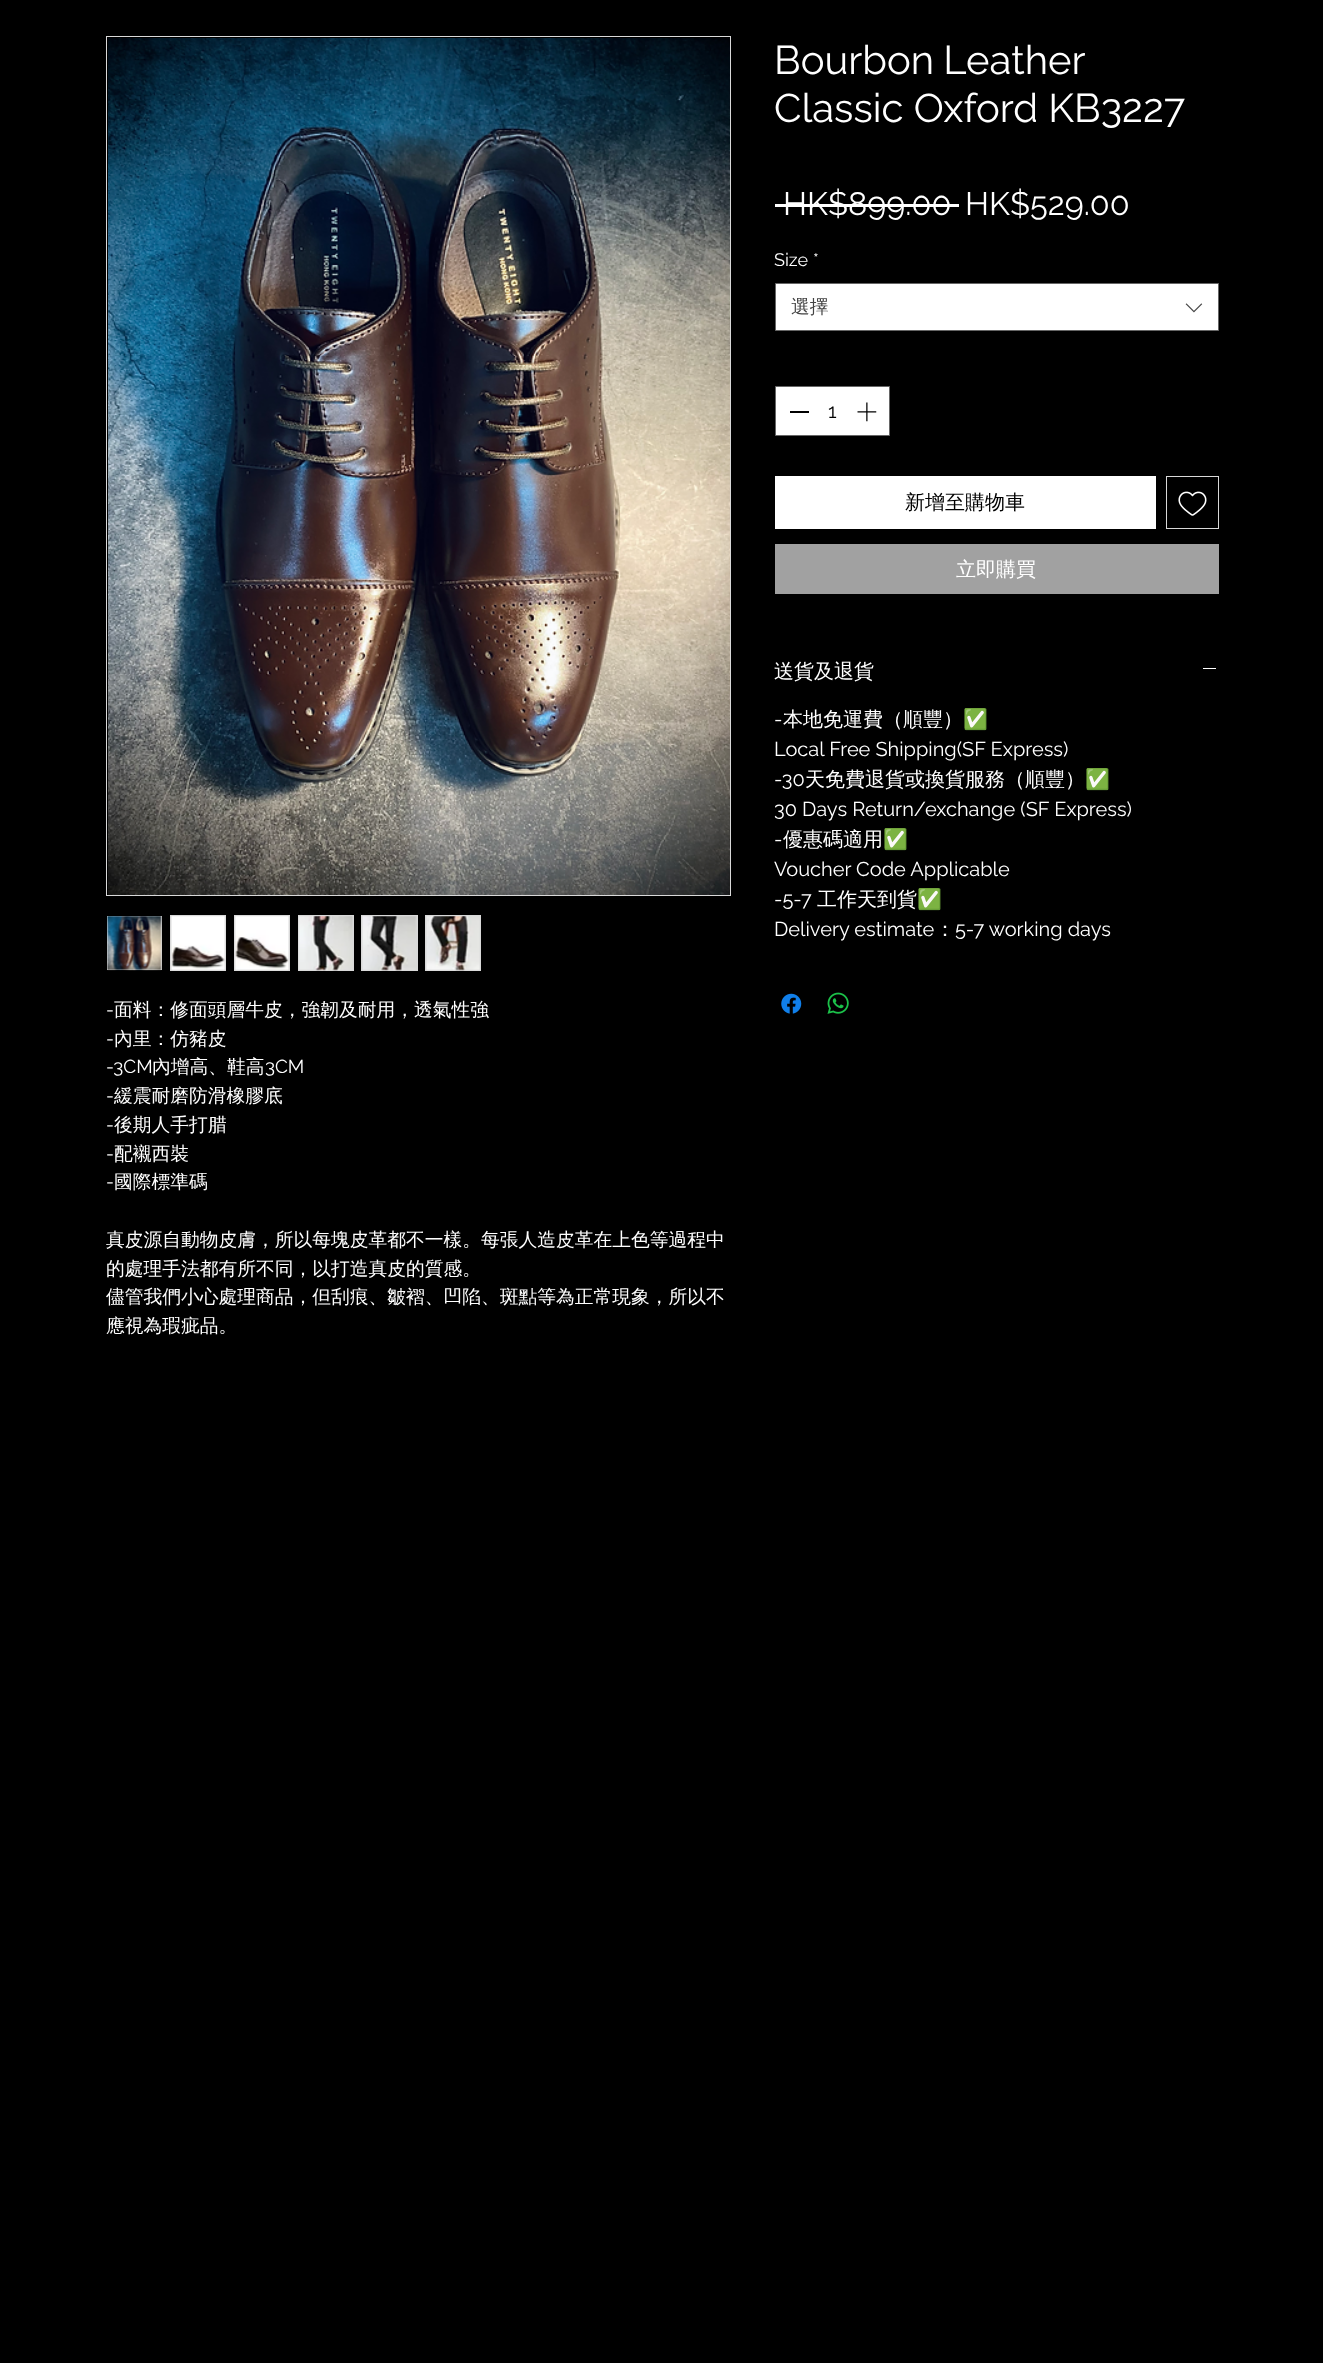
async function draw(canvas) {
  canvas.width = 1323;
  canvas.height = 2363;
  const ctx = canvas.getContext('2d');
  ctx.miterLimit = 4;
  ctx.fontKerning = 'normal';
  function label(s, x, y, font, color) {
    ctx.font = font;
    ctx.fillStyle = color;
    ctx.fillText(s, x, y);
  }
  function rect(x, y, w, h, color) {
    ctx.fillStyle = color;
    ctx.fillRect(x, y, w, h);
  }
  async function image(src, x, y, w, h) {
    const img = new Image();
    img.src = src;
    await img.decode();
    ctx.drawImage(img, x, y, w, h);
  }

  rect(0, 0, 1323, 2363, '#000');
  ctx.wordSpacing = '-1px';
  label('Bourbon Leather', 774, 74, '40px Raleway', '#fff');
  ctx.wordSpacing = '0px';
  label('Classic Oxford KB3227', 774, 122, '40px Raleway', '#fff');
  label('HK$899.00', 783, 215, '32.5px Raleway', '#fff');
  rect(775, 204, 184, 3, '#fff');
  label('HK$529.00', 965, 215, '32.5px Raleway', '#fff');
  label('Size', 774, 266, '18px Raleway', '#fff');
  label('*', 813, 266, '18px Raleway', '#fff');
  ctx.beginPath();
  ctx.rect(775.5, 283.5, 443, 47);
  ctx.fill();
  ctx.strokeStyle = '#666';
  ctx.stroke();
  label('選擇', 791, 313, '500 18.75px WenQuanYi Zen Hei', '#444');
  await image('assets/img1.png', 1185, 303, 18, 10);
  ctx.fillStyle = '#fff';
  ctx.beginPath();
  ctx.rect(775.5, 386.5, 114, 49);
  ctx.fill();
  ctx.stroke();
  rect(790, 411, 19, 2, '#000');
  label('1', 828, 418, '20px Raleway', '#000');
  await image('assets/img2.png', 857, 402, 20, 20);
  rect(775, 476, 381, 53, '#fff');
  label('新增至購物車', 905, 509, '500 20px WenQuanYi Zen Hei', '#000');
  ctx.strokeStyle = '#d9d9d9';
  ctx.strokeRect(1166.5, 476.5, 52, 52);
  await image('assets/img3.png', 1178, 491, 29, 25);
  rect(775, 544, 444, 50, '#a1a1a1');
  label('立即購買', 956, 576, '500 20px WenQuanYi Zen Hei', '#fff');
  label('送貨及退貨', 774, 678, '500 20px WenQuanYi Zen Hei', '#fff');
  rect(1203, 668, 13, 1, '#fff');
  label('-', 774, 726, '20px Raleway', '#fff');
  label('本地免運費（順豐）', 783, 726, '500 20px WenQuanYi Zen Hei', '#fff');
  label('✅', 963, 726, '20px Noto Color Emoji', '#fff');
  label('Local Free Shipping(SF Express)', 774, 756, '20px Raleway', '#fff');
  label('-30', 774, 786, '20px Raleway', '#fff');
  label('天免費退貨或換貨服務（順豐）', 805, 786, '500 20px WenQuanYi Zen Hei', '#fff');
  label('✅', 1085, 786, '20px Noto Color Emoji', '#fff');
  label('30 Days Return/exchange (SF Express)', 774, 816, '20px Raleway', '#fff');
  label('-', 774, 846, '20px Raleway', '#fff');
  label('優惠碼適用', 783, 846, '500 20px WenQuanYi Zen Hei', '#fff');
  label('✅', 883, 846, '20px Noto Color Emoji', '#fff');
  label('Voucher Code Applicable', 774, 876, '20px Raleway', '#fff');
  label('-5-7', 774, 906, '20px Raleway', '#fff');
  label('工作天到貨', 817, 906, '500 20px WenQuanYi Zen Hei', '#fff');
  label('✅', 917, 906, '20px Noto Color Emoji', '#fff');
  label('Delivery estimate', 774, 936, '20px Raleway', '#fff');
  label('：', 935, 936, '500 20px WenQuanYi Zen Hei', '#fff');
  label('5-7 working days', 955, 936, '20px Raleway', '#fff');
  await image('assets/img4.png', 781, 993, 21, 21);
  await image('assets/img5.png', 827, 992, 22, 22);
  ctx.strokeRect(106.5, 36.5, 624, 859);
  await image('assets/img6.png', 108, 38, 622, 857);
  rect(107, 916, 55, 54, '#d9d9d9');
  await image('assets/img7.png', 107, 916, 55, 55);
  rect(170, 915, 56, 56, '#d9d9d9');
  await image('assets/img8.png', 171, 916, 55, 55);
  rect(234, 915, 56, 56, '#d9d9d9');
  await image('assets/img9.png', 234, 916, 55, 55);
  rect(298, 915, 56, 56, '#d9d9d9');
  await image('assets/img10.png', 298, 916, 55, 55);
  rect(361, 915, 57, 56, '#d9d9d9');
  await image('assets/img11.png', 362, 916, 55, 55);
  rect(425, 915, 56, 56, '#d9d9d9');
  await image('assets/img12.png', 426, 916, 54, 55);
  label('-', 106, 1016, '18.75px Raleway', '#fff');
  label('面料：修面頭層牛皮，強韌及耐用，透氣性強', 114, 1016, '500 18.75px WenQuanYi Zen Hei', '#fff');
  label('-', 106, 1045, '18.75px Raleway', '#fff');
  label('內里：仿豬皮', 114, 1045, '500 18.75px WenQuanYi Zen Hei', '#fff');
  label('-3CM', 106, 1073, '18.75px Raleway', '#fff');
  label('內增高、鞋高', 152, 1073, '500 18.75px WenQuanYi Zen Hei', '#fff');
  label('3CM', 265, 1073, '18.75px Raleway', '#fff');
  label('-', 106, 1102, '18.75px Raleway', '#fff');
  label('緩震耐磨防滑橡膠底', 114, 1102, '500 18.75px WenQuanYi Zen Hei', '#fff');
  label('-', 106, 1131, '18.75px Raleway', '#fff');
  label('後期人手打腊', 114, 1131, '500 18.75px WenQuanYi Zen Hei', '#fff');
  label('-', 106, 1160, '18.75px Raleway', '#fff');
  label('配襯西裝', 114, 1160, '500 18.75px WenQuanYi Zen Hei', '#fff');
  label('-', 106, 1188, '18.75px Raleway', '#fff');
  label('國際標準碼', 114, 1188, '500 18.75px WenQuanYi Zen Hei', '#fff');
  label('真皮源自動物皮膚，所以每塊皮革都不一樣。每張人造皮革在上色等過程中', 106, 1246, '500 18.75px WenQuanYi Zen Hei', '#fff');
  label('的處理手法都有所不同，以打造真皮的質感。', 106, 1275, '500 18.75px WenQuanYi Zen Hei', '#fff');
  label('儘管我們小心處理商品，但刮痕、皺褶、凹陷、斑點等為正常現象，所以不', 106, 1303, '500 18.75px WenQuanYi Zen Hei', '#fff');
  label('應視為瑕疵品。', 106, 1332, '500 18.75px WenQuanYi Zen Hei', '#fff');
}

draw(document.querySelector('canvas'));
